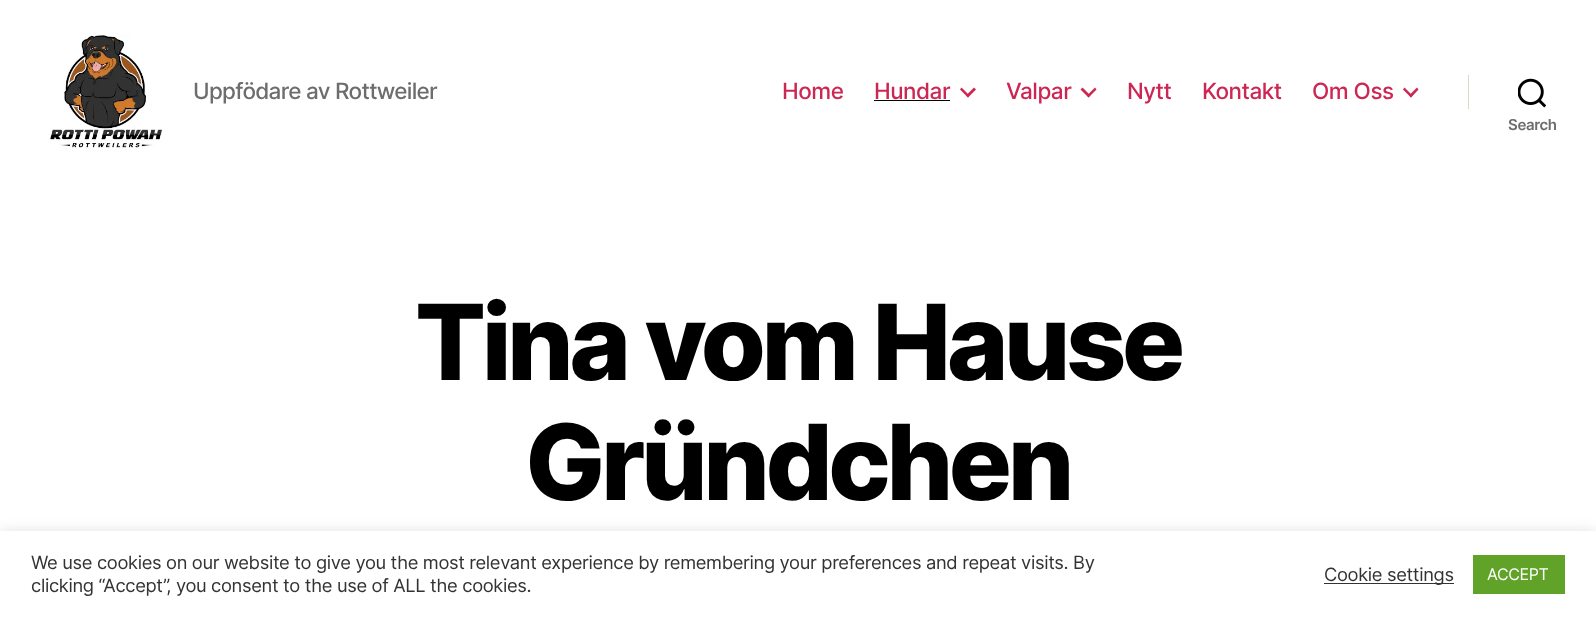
async function draw(canvas) {
  canvas.width = 1596;
  canvas.height = 617;
  const ctx = canvas.getContext('2d');
  ctx.miterLimit = 4;
  ctx.fontKerning = 'normal';
  function label(s, x, y, font, color) {
    ctx.font = font;
    ctx.fillStyle = color;
    ctx.fillText(s, x, y);
  }
  function rect(x, y, w, h, color) {
    ctx.fillStyle = color;
    ctx.fillRect(x, y, w, h);
  }
  async function image(src, x, y, w, h) {
    const img = new Image();
    img.src = src;
    await img.decode();
    ctx.drawImage(img, x, y, w, h);
  }
  let path;

  rect(0, 0, 1596, 617, '#fff');
  await image('assets/img1.png', 50, 35, 112, 113);
  ctx.letterSpacing = '-0.7px';
  label('Uppfödare av Rottweiler', 193, 99, '500 22.5px Inter', '#6d6d6d');
  ctx.letterSpacing = '-0.5px';
  label('Home', 782, 99, '500 22.5px Inter', '#cd2653');
  label('Hundar', 874, 99, '500 22.5px Inter', '#cd2653');
  rect(874, 100, 76, 1, '#000');
  ctx.fillStyle = '#cd2653';
  path = new Path2D('M960 89.5L961.5 87.5L969.5 95.5L968 97.5Z');
  ctx.fill(path);
  path = new Path2D('M966 95.5L974 87.5L976 89.5L968 97.5Z');
  ctx.fill(path);
  label('Valpar', 1006, 99, '500 22.5px Inter', '#cd2653');
  path = new Path2D('M1080.5 89.5L1082.5 87.5L1090.5 95.5L1088.5 97.5Z');
  ctx.fill(path);
  path = new Path2D('M1087 95.5L1095 87.5L1096.5 89.5L1088.5 97.5Z');
  ctx.fill(path);
  label('Nytt', 1127, 99, '500 22.5px Inter', '#cd2653');
  label('Kontakt', 1202, 99, '500 22.5px Inter', '#cd2653');
  label('Om Oss', 1312, 99, '500 22.5px Inter', '#cd2653');
  path = new Path2D('M1403 89.5L1404.5 87.5L1412.5 95.5L1411 97.5Z');
  ctx.fill(path);
  path = new Path2D('M1409 95.5L1417 87.5L1418.5 89.5L1411 97.5Z');
  ctx.fill(path);
  rect(1468, 75, 1, 34, '#dcd7ca');
  await image('assets/img2.png', 1518, 78, 28, 30);
  ctx.letterSpacing = '-0.34px';
  label('Search', 1508, 130, '600 15px Inter', '#6d6d6d');
  ctx.letterSpacing = '-4.4px';
  label('Tina vom Hause', 415, 380, '800 105px Inter', '#000');
  label('Gründchen', 525, 500, '800 105px Inter', '#000');
  ctx.fillStyle = '#acabab4d';
  ctx.filter = 'blur(6px)';
  ctx.beginPath();
  ctx.rect(0, 530, 1596, 86);
  ctx.fill();
  ctx.filter = 'none';
  rect(0, 531, 1596, 86, '#fff');
  ctx.letterSpacing = '-0.34px';
  label('We use cookies on our website to give you the most relevant experience by remembering your preferences and repeat visits. By', 31, 569, '18.33px Inter', '#333');
  label('clicking “Accept”, you consent to the use of ALL the cookies.', 31, 592, '18.33px Inter', '#333');
  rect(1324, 583, 130, 1, '#333');
  label('Cookie settings', 1324, 581, '18.33px Inter', '#333');
  rect(1473, 555, 92, 39, '#61a229');
  label('ACCEPT', 1487, 580, '16px Inter', '#fff');
}

draw(document.querySelector('canvas'));
